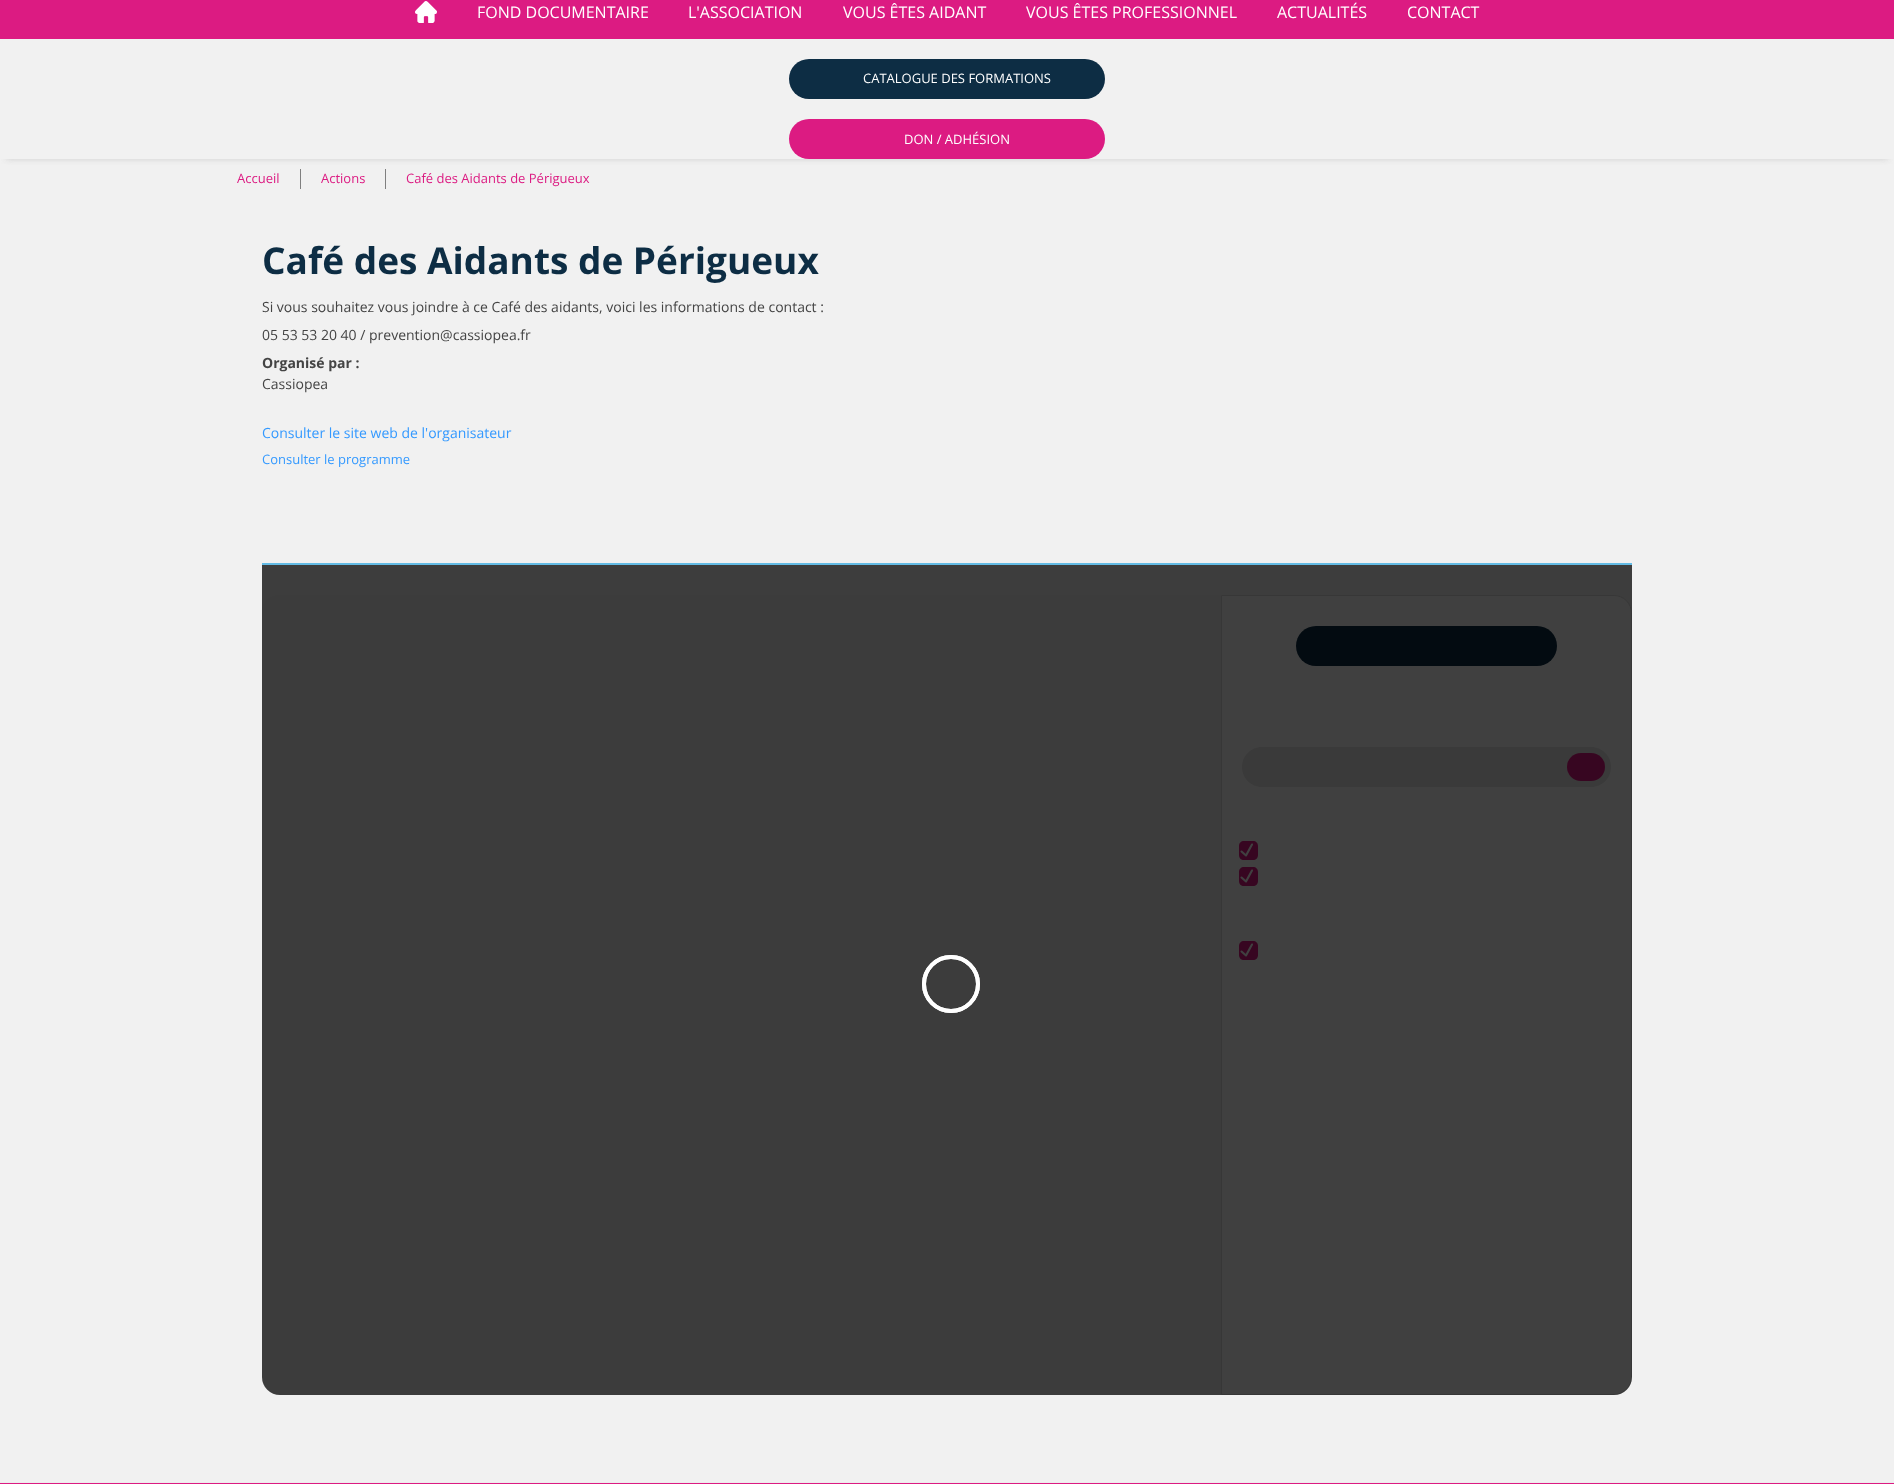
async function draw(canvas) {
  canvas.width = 1894;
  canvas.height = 1484;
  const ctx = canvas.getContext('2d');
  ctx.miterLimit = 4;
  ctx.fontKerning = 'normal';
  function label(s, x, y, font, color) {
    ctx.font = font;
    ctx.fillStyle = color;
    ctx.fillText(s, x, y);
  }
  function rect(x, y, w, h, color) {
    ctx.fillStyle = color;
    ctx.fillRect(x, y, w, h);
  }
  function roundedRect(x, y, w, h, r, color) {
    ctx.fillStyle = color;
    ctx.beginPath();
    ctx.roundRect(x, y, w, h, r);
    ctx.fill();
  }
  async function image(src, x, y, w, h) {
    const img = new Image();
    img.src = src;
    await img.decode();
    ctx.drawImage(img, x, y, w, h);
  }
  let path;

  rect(0, 0, 1894, 1484, '#f1f1f1');
  rect(0, 0, 1894, 39, '#dc1b82');
  ctx.save();
  ctx.beginPath();
  ctx.rect(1, 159, 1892, 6);
  ctx.clip();
  ctx.fillStyle = '#cecece';
  ctx.filter = 'blur(3px)';
  ctx.beginPath();
  ctx.rect(6, -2, 1882, 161);
  ctx.fill();
  ctx.filter = 'none';
  ctx.restore();
  await image('assets/img1.png', 415, 1, 22, 22);
  label('FOND DOCUMENTAIRE', 477, 18, '16px Open Sans', '#fff');
  label('L\'ASSOCIATION', 688, 18, '16px Open Sans', '#fff');
  label('VOUS ÊTES AIDANT', 843, 18, '16px Open Sans', '#fff');
  label('VOUS ÊTES PROFESSIONNEL', 1026, 18, '16px Open Sans', '#fff');
  label('ACTUALITÉS', 1277, 18, '16px Open Sans', '#fff');
  label('CONTACT', 1407, 18, '16px Open Sans', '#fff');
  roundedRect(789, 59, 316, 40, 20, '#0d2d44');
  label('CATALOGUE DES FORMATIONS', 863, 83, '13px Open Sans', '#fff');
  roundedRect(789, 119, 316, 40, 20, '#dc1b82');
  label('DON / ADHÉSION', 904, 144, '13px Open Sans', '#fff');
  rect(300, 169, 1, 20, '#808080');
  label('Accueil', 237, 183, '13px Open Sans', '#dc1b82');
  rect(385, 169, 1, 20, '#808080');
  label('Actions', 321, 183, '13px Open Sans', '#dc1b82');
  label('Café des Aidants de Périgueux', 406, 183, '13px Open Sans', '#dc1b82');
  label('Café des Aidants de Périgueux', 262, 274, 'bold 37px Open Sans', '#0d2d44');
  label('Si vous souhaitez vous joindre à ce Café des aidants, voici les informations de contact :', 262, 312, '14px Open Sans', '#444');
  label('05 53 53 20 40 / prevention@cassiopea.fr', 262, 340, '14px Open Sans', '#444');
  label('Organisé par :', 262, 368, 'bold 14px Open Sans', '#444');
  label('Cassiopea', 262, 389, '14px Open Sans', '#444');
  label('Consulter le site web de l\'organisateur', 262, 438, '14px Open Sans', '#39f');
  label('Consulter le programme', 262, 464, '13px Open Sans', '#39f');
  rect(262, 563, 1370, 2, '#63bbe5');
  ctx.fillStyle = '#eee';
  ctx.beginPath();
  ctx.roundRect(262, 595, 959, 800, [18, 0, 0, 18]);
  ctx.fill();
  ctx.fillStyle = '#fff';
  ctx.beginPath();
  ctx.roundRect(1221.5, 595.5, 410, 799, [0, 17.5, 17.5, 0]);
  ctx.fill();
  ctx.strokeStyle = '#dcdcdc';
  ctx.stroke();
  roundedRect(1296, 626, 261, 40, 20, '#0d2d44');
  ctx.fillStyle = '#e5e5e5';
  path = new Path2D('M1262 747H1591C1602 747 1611 756 1611 767C1611 778 1602 787 1591 787H1262C1251 787 1242 778 1242 767C1242 756 1251 747 1262 747Z');
  ctx.fill(path);
  roundedRect(1567, 753, 38, 28, 14, '#dc1b82');
  path = new Path2D('M1244 841H1253C1256 841 1258 843 1258 846V855C1258 858 1256 860 1253 860H1244C1241 860 1239 858 1239 855V846C1239 843 1241 841 1244 841ZM1244 867H1253C1256 867 1258 869 1258 872V881C1258 884 1256 886 1253 886H1244C1241 886 1239 884 1239 881V872C1239 869 1241 867 1244 867Z');
  ctx.fill(path);
  path = new Path2D('M1241.5 851.5L1246 855.5L1252 844.5M1241.5 877.5L1246 881.5L1252 870.5');
  ctx.strokeStyle = '#fff';
  ctx.lineWidth = 2.1;
  ctx.lineCap = 'round';
  ctx.lineJoin = 'round';
  ctx.stroke(path);
  path = new Path2D('M1244 941H1253C1256 941 1258 943 1258 946V955C1258 958 1256 960 1253 960H1244C1241 960 1239 958 1239 955V946C1239 943 1241 941 1244 941Z');
  ctx.fill(path);
  path = new Path2D('M1241.5 951.5L1246 955.5L1252 944.5');
  ctx.stroke(path);
  ctx.fillStyle = '#000000bf';
  ctx.beginPath();
  ctx.roundRect(262, 565, 1370, 830, [0, 0, 18, 18]);
  ctx.fill();
  ctx.beginPath();
  ctx.arc(951, 984, 27, 0, 2 * Math.PI);
  ctx.lineWidth = 4;
  ctx.stroke();
  ctx.beginPath();
  ctx.arc(951, 984, 27, 0, 2 * Math.PI);
  ctx.stroke();
  rect(0, 1483, 1894, 1, '#dc1b82');
  rect(0, 1482, 1894, 1, '#ededed');
}

draw(document.querySelector('canvas'));
